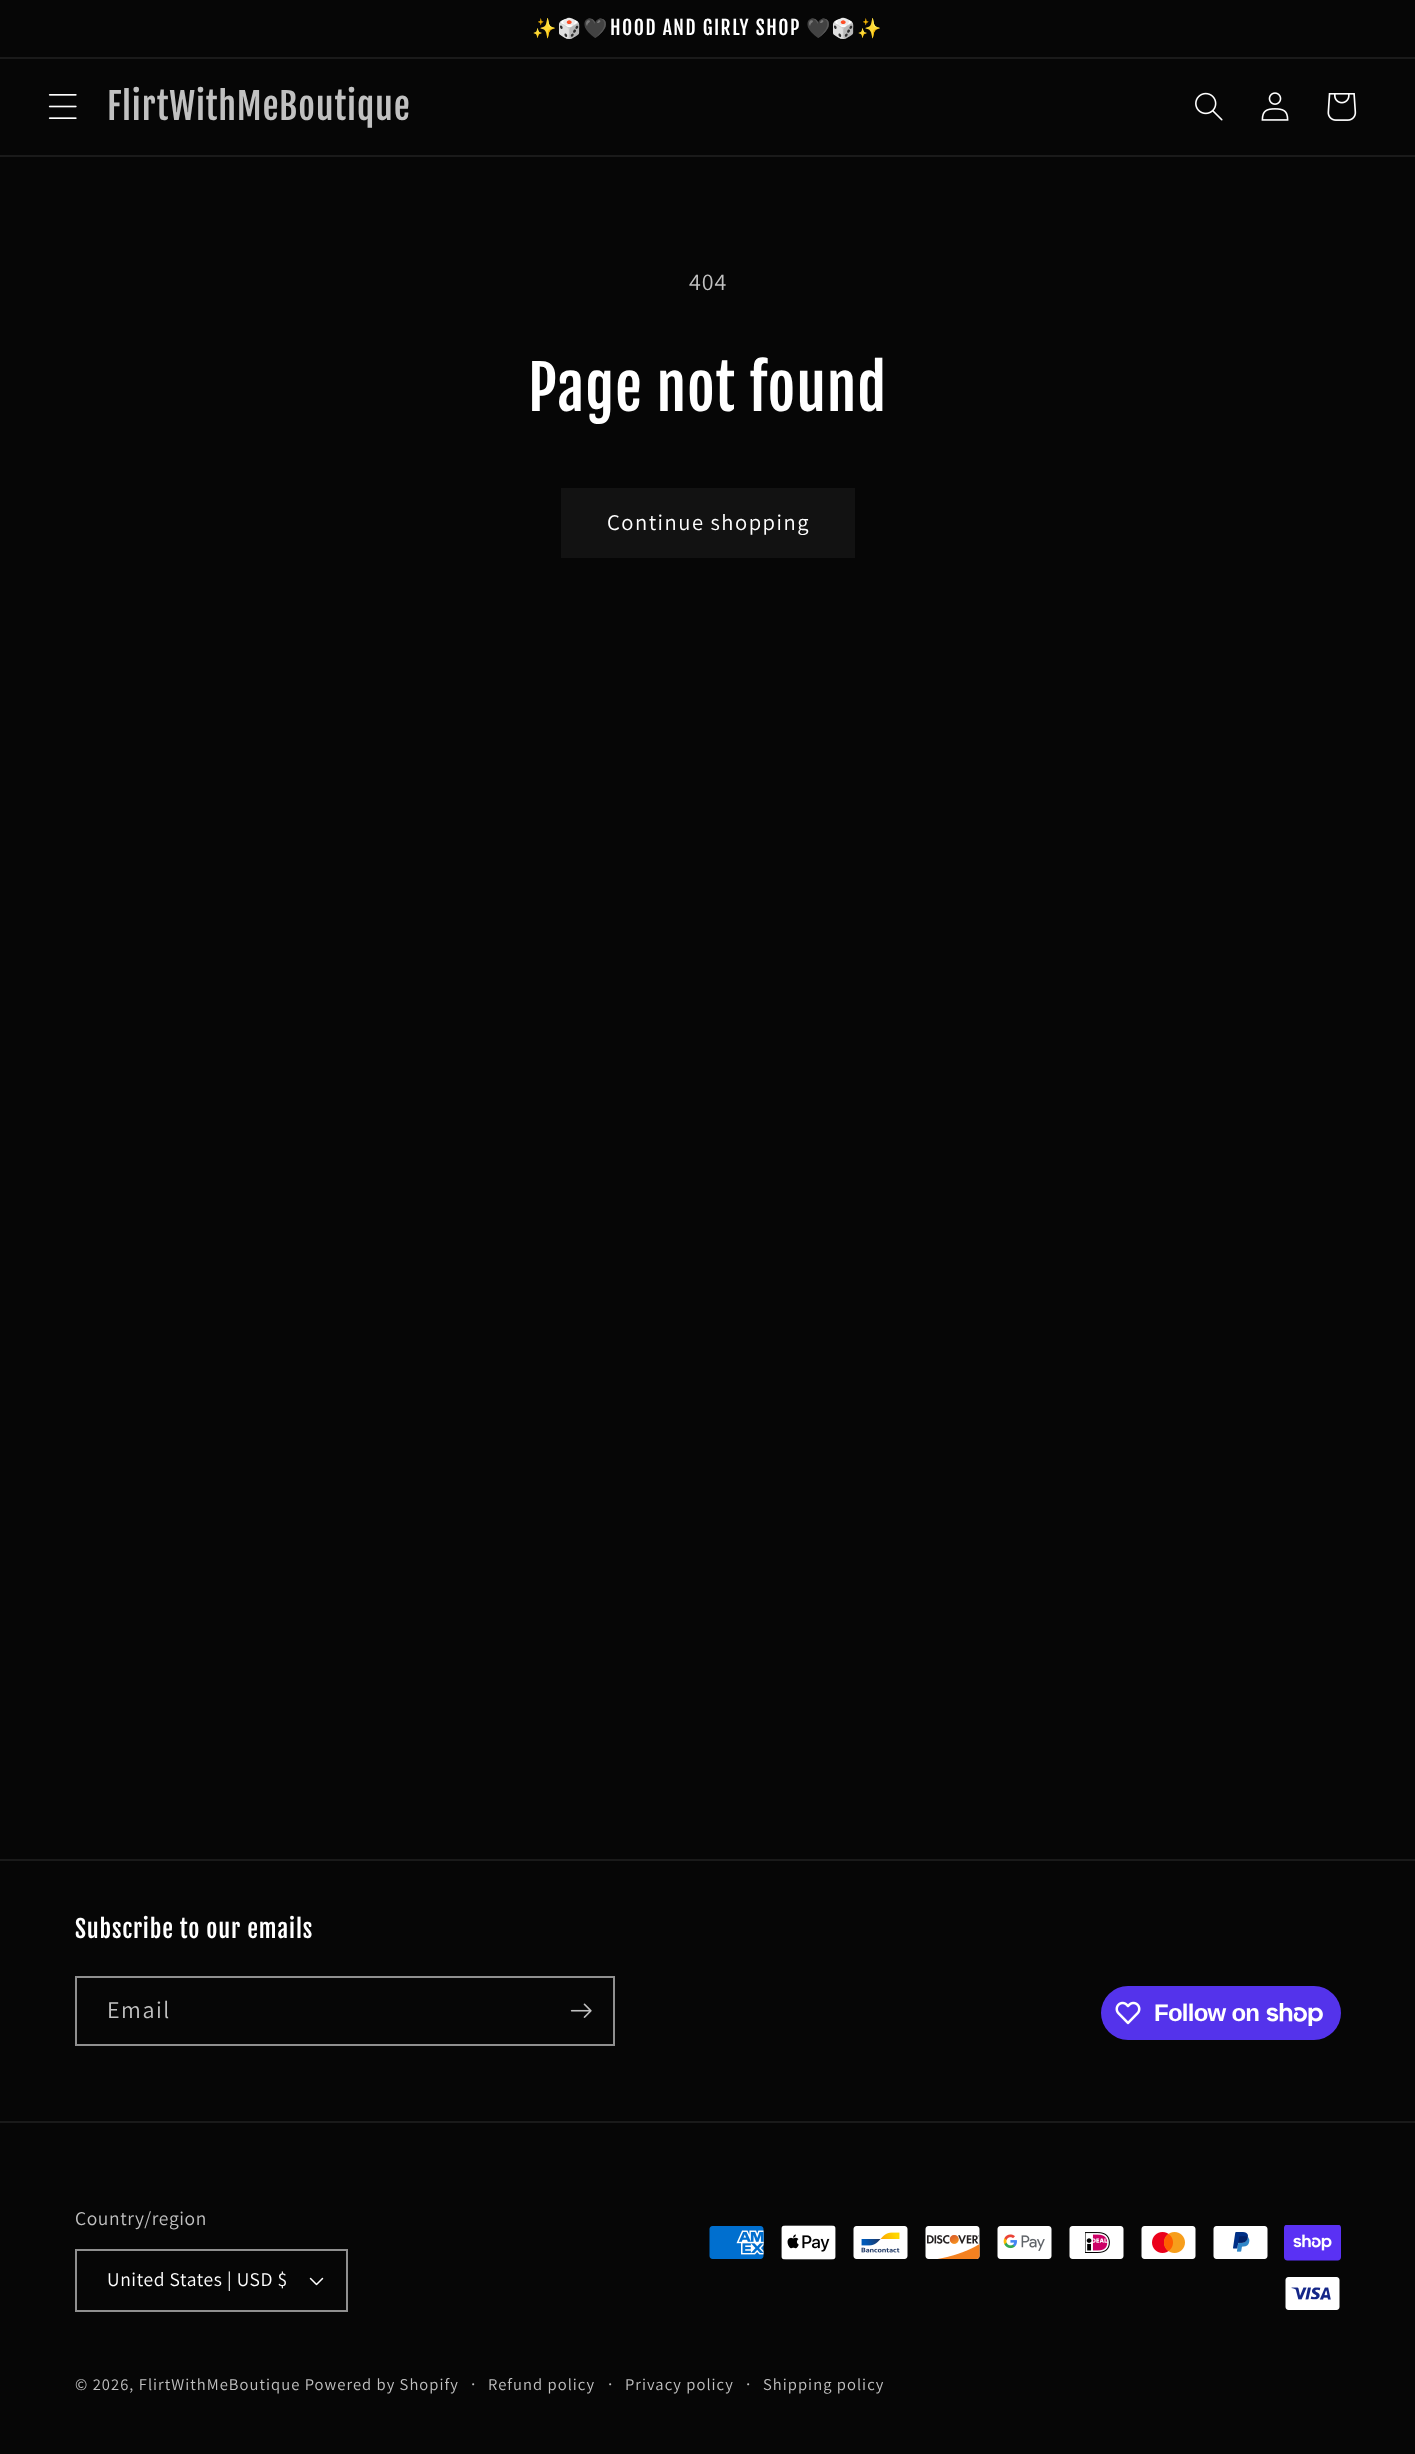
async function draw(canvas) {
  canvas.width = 1415;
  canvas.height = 2454;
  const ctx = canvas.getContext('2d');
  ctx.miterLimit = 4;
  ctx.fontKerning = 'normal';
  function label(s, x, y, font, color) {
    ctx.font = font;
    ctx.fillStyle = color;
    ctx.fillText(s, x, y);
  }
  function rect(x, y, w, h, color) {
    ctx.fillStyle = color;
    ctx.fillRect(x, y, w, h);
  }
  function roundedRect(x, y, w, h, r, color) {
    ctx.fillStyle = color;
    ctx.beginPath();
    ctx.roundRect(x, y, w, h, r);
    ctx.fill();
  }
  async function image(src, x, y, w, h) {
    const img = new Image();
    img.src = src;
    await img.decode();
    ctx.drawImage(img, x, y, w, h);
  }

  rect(0, 0, 1415, 2454, '#060606');
  rect(0, 57, 1415, 2, '#1a1a1a');
  ctx.letterSpacing = '1.5px';
  label('✨🎲🖤', 532, 35, '19.5px Noto Color Emoji', '#fff');
  label('HOOD AND GIRLY SHOP', 610, 35, '19.5px Fjalla One', '#fff');
  label('🖤🎲✨', 806, 35, '19.5px Noto Color Emoji', '#fff');
  rect(0, 155, 1415, 2, '#1a1a1a');
  await image('assets/img1.png', 48, 94, 29, 25);
  ctx.letterSpacing = '0.9px';
  label('FlirtWithMeBoutique', 107, 120, '36px Fjalla One', '#c1c1c1');
  await image('assets/img2.png', 1195, 92, 28, 29);
  await image('assets/img3.png', 1261, 92, 28, 29);
  await image('assets/img4.png', 1327, 93, 30, 28);
  label('404', 689, 290, '24px Assistant', '#c1c1c1');
  label('Page not found', 528, 411, '60px Fjalla One', '#fff');
  rect(561, 488, 294, 70, '#121212');
  ctx.letterSpacing = '1.5px';
  label('Continue shopping', 607, 530, '22.5px Assistant', '#fff');
  rect(0, 1859, 1415, 2, '#1a1a1a');
  ctx.letterSpacing = '0.9px';
  label('Subscribe to our emails', 75, 1938, '24px Fjalla One', '#fff');
  ctx.strokeStyle = '#8f8f8f';
  ctx.lineWidth = 2;
  ctx.strokeRect(76, 1977, 538, 68);
  ctx.letterSpacing = '1.5px';
  label('Email', 107, 2018, '24px Assistant', '#c1c1c1');
  await image('assets/img5.png', 570, 2003, 22, 15);
  roundedRect(1101, 1986, 240, 54, 27, '#5433eb');
  await image('assets/img6.png', 1115, 2001, 26, 24);
  ctx.letterSpacing = '-0.75px';
  label('Follow on', 1154, 2021, 'bold 24px Liberation Sans', '#fff');
  await image('assets/img7.png', 1266, 2003, 57, 23);
  rect(0, 2121, 1415, 2, '#1a1a1a');
  ctx.letterSpacing = '0.6px';
  label('Country/region', 75, 2225, '19.5px Assistant', '#c1c1c1');
  await image('assets/img8.png', 309, 2277, 15, 9);
  ctx.strokeRect(76, 2250, 271, 61);
  label('United States | USD $', 107, 2286, '19.5px Assistant', '#fff');
  await image('assets/img9.png', 709, 2226, 55, 33);
  await image('assets/img10.png', 781, 2225, 55, 35);
  await image('assets/img11.png', 853, 2226, 55, 33);
  await image('assets/img12.png', 925, 2226, 55, 33);
  await image('assets/img13.png', 997, 2226, 55, 33);
  await image('assets/img14.png', 1069, 2226, 55, 33);
  await image('assets/img15.png', 1141, 2226, 55, 33);
  await image('assets/img16.png', 1213, 2226, 55, 33);
  await image('assets/img17.png', 1284, 2225, 57, 36);
  await image('assets/img18.png', 1285, 2277, 55, 33);
  ctx.letterSpacing = '1.05px';
  label('© 2026, FlirtWithMeBoutique Powered by Shopify', 75, 2390, '16.5px Assistant', '#c1c1c1');
  label('·', 471, 2390, '18px Assistant', '#c1c1c1');
  label('Refund policy', 488, 2390, '16.5px Assistant', '#c1c1c1');
  label('·', 608, 2390, '18px Assistant', '#c1c1c1');
  label('Privacy policy', 625, 2390, '16.5px Assistant', '#c1c1c1');
  label('·', 746, 2390, '18px Assistant', '#c1c1c1');
  label('Shipping policy', 763, 2390, '16.5px Assistant', '#c1c1c1');
}

draw(document.querySelector('canvas'));
